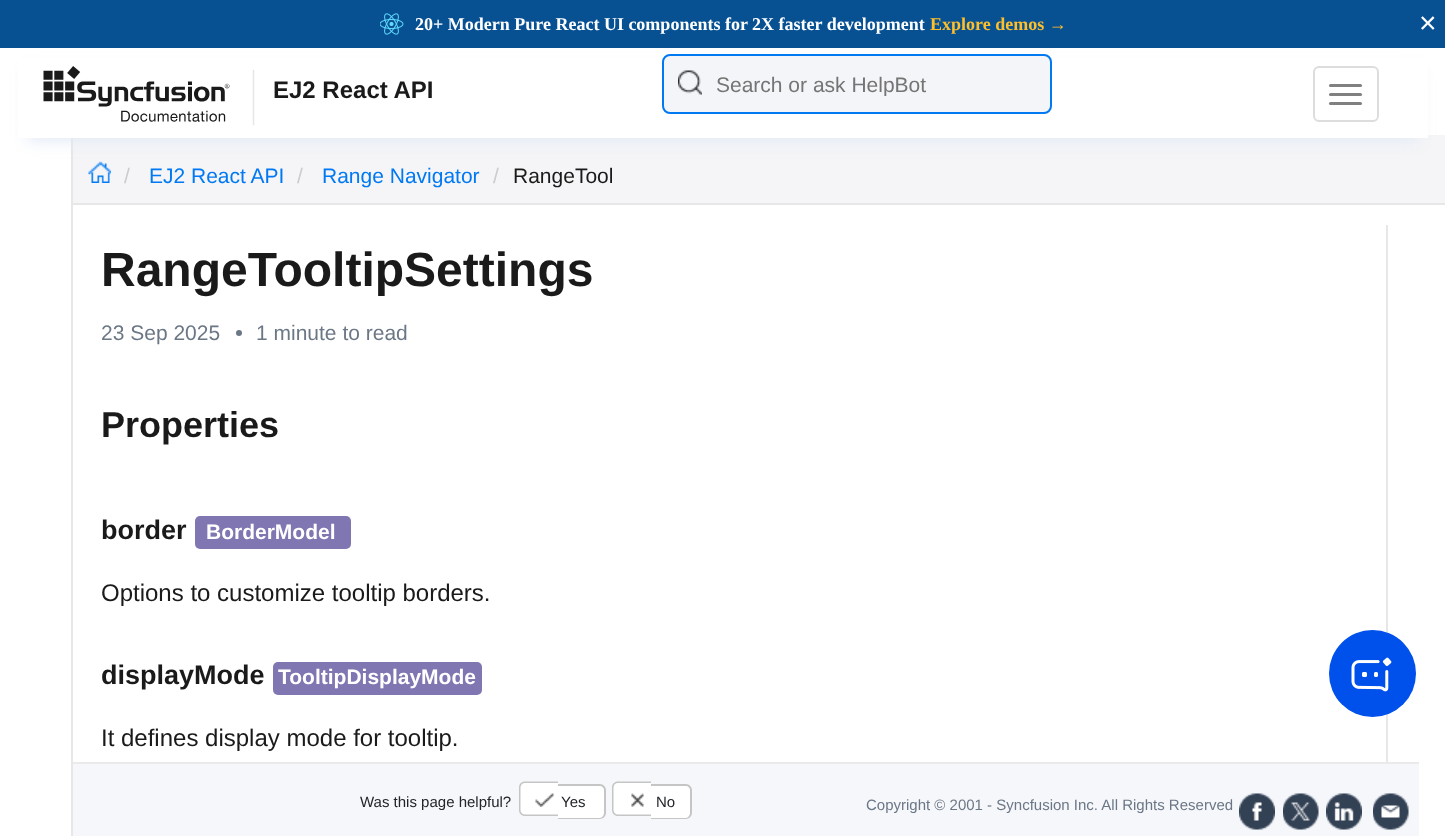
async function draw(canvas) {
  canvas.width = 1445;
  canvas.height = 836;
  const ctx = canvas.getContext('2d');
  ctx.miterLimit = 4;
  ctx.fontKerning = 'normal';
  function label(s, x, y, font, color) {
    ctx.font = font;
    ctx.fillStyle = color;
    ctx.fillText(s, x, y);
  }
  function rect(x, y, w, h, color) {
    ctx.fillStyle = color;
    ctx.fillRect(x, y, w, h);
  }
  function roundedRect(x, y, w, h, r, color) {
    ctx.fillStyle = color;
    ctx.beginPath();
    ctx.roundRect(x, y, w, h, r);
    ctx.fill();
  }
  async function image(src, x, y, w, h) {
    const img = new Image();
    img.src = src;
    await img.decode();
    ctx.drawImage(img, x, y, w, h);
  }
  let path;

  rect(0, 0, 1445, 836, '#fff');
  rect(73, 135, 1372, 68, '#f5f5f7');
  await image('assets/img4.png', 88, 161, 23, 22);
  rect(71, 138, 2, 698, '#e7e7e7');
  ctx.fillStyle = '#e2eaf5';
  ctx.filter = 'blur(8px)';
  ctx.beginPath();
  ctx.rect(27, 69, 1392, 72);
  ctx.fill();
  ctx.filter = 'none';
  rect(0, 0, 1445, 48, '#075193');
  await image('assets/img1.png', 380, 13, 24, 22);
  label('20+ Modern Pure React UI components for 2X faster development', 415, 30, 'bold 18px Liberation Serif', '#fff');
  label('Explore demos →', 930, 30, 'bold 18px Liberation Serif', '#ffbf2a');
  label('×', 1419, 33, '30px Liberation Sans', '#fff');
  rect(18, 58, 1410, 80, '#fff');
  await image('assets/img2.png', 43, 66, 212, 60);
  label('EJ2 React API', 273, 98, 'bold 24px Liberation Sans', '#1a1a1a');
  roundedRect(662, 54, 390, 60, 8, '#f4f5f8');
  await image('assets/img3.png', 678, 70, 24, 25);
  ctx.beginPath();
  ctx.roundRect(663, 55, 388, 58, 7);
  ctx.strokeStyle = '#0079f3';
  ctx.lineWidth = 2;
  ctx.stroke();
  ctx.save();
  ctx.beginPath();
  ctx.rect(716, 72, 282, 24);
  ctx.clip();
  label('Search or ask HelpBot', 716, 92, '21px Liberation Sans', '#757575');
  ctx.restore();
  ctx.beginPath();
  ctx.roundRect(1314, 67, 64, 54, 5);
  ctx.strokeStyle = '#ddd';
  ctx.stroke();
  roundedRect(1329, 84, 33, 3, 1.5, '#808080');
  roundedRect(1329, 93, 33, 3, 1.5, '#808080');
  roundedRect(1329, 102, 33, 3, 1.5, '#808080');
  rect(73, 203, 1372, 2, '#e7e7e7');
  label('/', 124, 183, '21px Liberation Sans', '#ccc');
  label('EJ2 React API', 149, 183, '21px Liberation Sans', '#0079f3');
  label('/', 297, 183, '21px Liberation Sans', '#ccc');
  label('Range Navigator', 322, 183, '21px Liberation Sans', '#0079f3');
  label('/', 493, 183, '21px Liberation Sans', '#ccc');
  label('RangeTool', 513, 183, '21px Liberation Sans', '#1a1a1a');
  rect(1386, 225, 2, 537, '#e7e7e7');
  label('RangeTooltipSettings', 101, 286, 'bold 48px Liberation Sans', '#1a1a1a');
  label('23 Sep 2025', 101, 340, '21px Liberation Sans', '#6c7786');
  ctx.beginPath();
  ctx.arc(239, 333, 3, 0, 2 * Math.PI);
  ctx.fill();
  label('1 minute to read', 256, 340, '21px Liberation Sans', '#6c7786');
  label('Properties', 101, 437, 'bold 36px Liberation Sans', '#1a1a1a');
  label('border', 101, 539, 'bold 27px Liberation Sans', '#1a1a1a');
  roundedRect(195, 516, 156, 33, 5, '#8076b2');
  label('BorderModel', 206, 539, 'bold 21px Liberation Sans', '#fff');
  label('Options to customize tooltip borders.', 101, 601, '24px Liberation Sans', '#1a1a1a');
  label('displayMode', 101, 684, 'bold 27px Liberation Sans', '#1a1a1a');
  roundedRect(273, 662, 209, 33, 5, '#8076b2');
  label('TooltipDisplayMode', 278, 684, 'bold 21px Liberation Sans', '#fff');
  label('It defines display mode for tooltip.', 101, 746, '24px Liberation Sans', '#1a1a1a');
  ctx.fillStyle = '#0050eb';
  ctx.beginPath();
  ctx.arc(1372.5, 673.5, 43.5, 0, 2 * Math.PI);
  ctx.fill();
  await image('assets/img5.png', 1351, 657, 41, 35);
  rect(73, 764, 1346, 72, '#f5f7fa');
  rect(73, 762, 1346, 2, '#eaeaea');
  label('Was this page helpful?', 360, 807, '15px Liberation Sans', '#22252a');
  ctx.fillStyle = '#fff';
  ctx.beginPath();
  ctx.roundRect(519, 782, 39, 34, [6, 0, 0, 6]);
  ctx.fill();
  ctx.fillStyle = '#c5c5c5';
  path = new Path2D('M525 781.5H558V816H525C521.5 816 519 813.5 519 810V787.5C519 784 521.5 781.5 525 781.5ZM525 783H558V814.5H525C522.5 814.5 520.5 812.5 520.5 810V787.5C520.5 785 522.5 783 525 783Z');
  ctx.fill(path, 'evenodd');
  ctx.fillStyle = '#fff';
  ctx.beginPath();
  ctx.roundRect(558, 785, 48, 34, [0, 6, 6, 0]);
  ctx.fill();
  ctx.fillStyle = '#c5c5c5';
  path = new Path2D('M558 784H600C603 784 606 787 606 790V813C606 816 603 819 600 819H558ZM558 786H600C602 786 604 788 604 790V813C604 815 602 818 600 818H558Z');
  ctx.fill(path, 'evenodd');
  await image('assets/img6.png', 535, 793, 19, 14);
  label('Yes', 561, 807, '15px Liberation Sans', '#22252a');
  ctx.fillStyle = '#fff';
  ctx.beginPath();
  ctx.roundRect(612, 782, 39, 34, [6, 0, 0, 6]);
  ctx.fill();
  ctx.fillStyle = '#c5c5c5';
  path = new Path2D('M618 781.5H651V816H618C614.5 816 612 813.5 612 810V787.5C612 784 614.5 781.5 618 781.5ZM618 783H651V814.5H618C615.5 814.5 613.5 812.5 613.5 810V787.5C613.5 785 615.5 783 618 783Z');
  ctx.fill(path, 'evenodd');
  ctx.fillStyle = '#fff';
  ctx.beginPath();
  ctx.roundRect(651, 785, 41, 34, [0, 6, 6, 0]);
  ctx.fill();
  ctx.fillStyle = '#c5c5c5';
  path = new Path2D('M651 784H686C689 784 692 787 692 790V813C692 816 689 819 686 819H651ZM651 786H686C688 786 690 788 690 790V813C690 815 688 818 686 818H651Z');
  ctx.fill(path, 'evenodd');
  await image('assets/img7.png', 631, 793, 13, 14);
  label('No', 656, 807, '15px Liberation Sans', '#22252a');
  label('Copyright © 2001 - Syncfusion Inc. All Rights Reserved', 866, 810, '15px Liberation Sans', '#6c7786');
  await image('assets/img8.png', 1239, 793, 36, 37);
  await image('assets/img9.png', 1283, 793, 36, 37);
  await image('assets/img10.png', 1326, 793, 36, 37);
  await image('assets/img11.png', 1373, 793, 36, 37);
}

draw(document.querySelector('canvas'));
